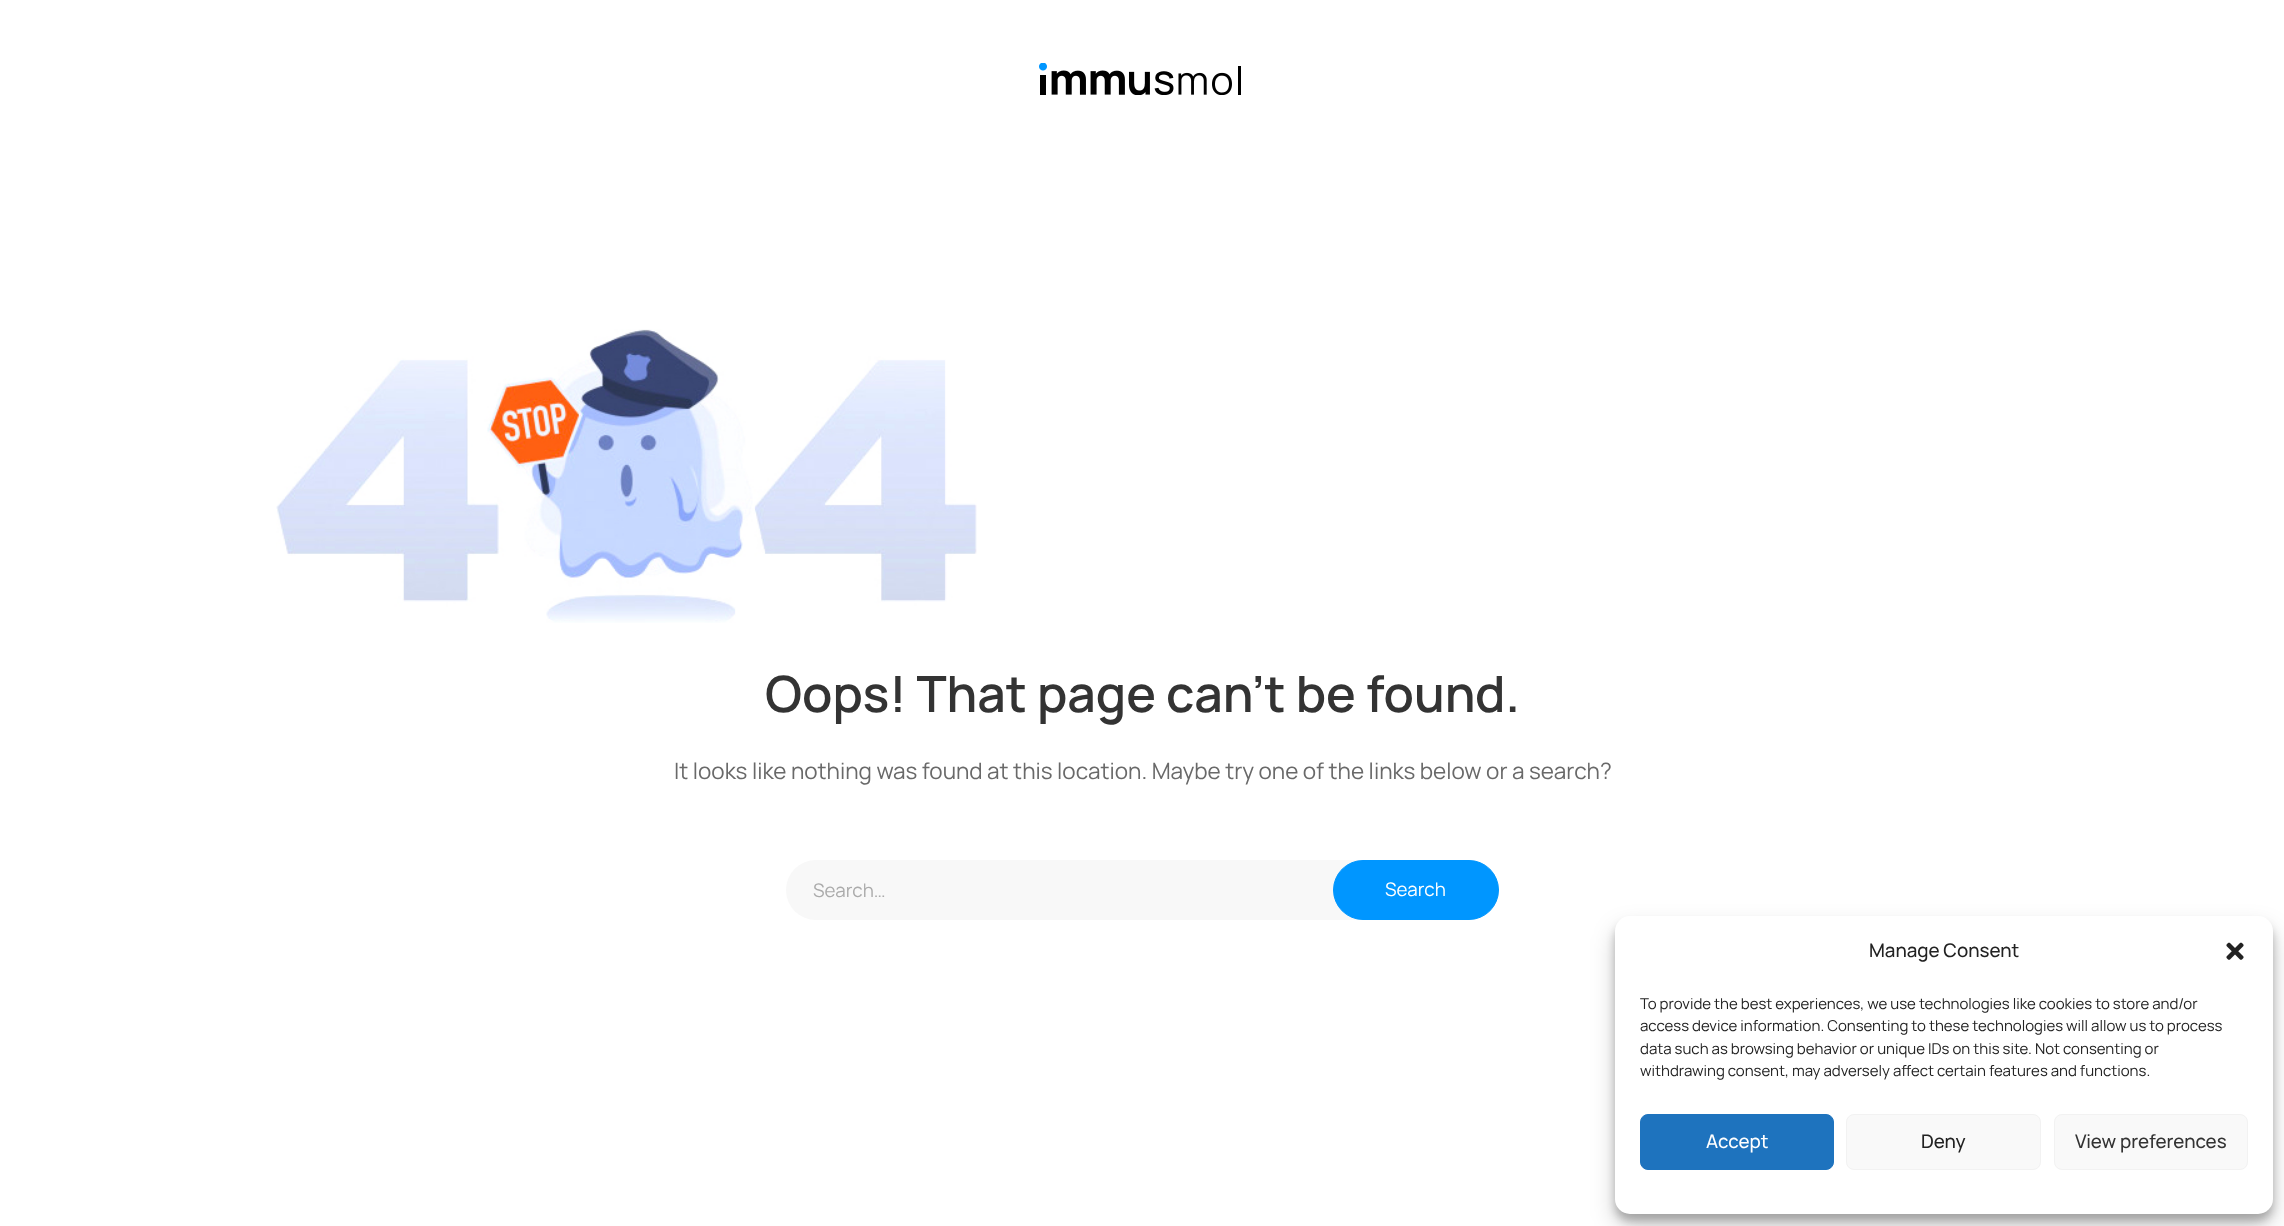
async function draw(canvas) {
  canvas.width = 2284;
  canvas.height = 1226;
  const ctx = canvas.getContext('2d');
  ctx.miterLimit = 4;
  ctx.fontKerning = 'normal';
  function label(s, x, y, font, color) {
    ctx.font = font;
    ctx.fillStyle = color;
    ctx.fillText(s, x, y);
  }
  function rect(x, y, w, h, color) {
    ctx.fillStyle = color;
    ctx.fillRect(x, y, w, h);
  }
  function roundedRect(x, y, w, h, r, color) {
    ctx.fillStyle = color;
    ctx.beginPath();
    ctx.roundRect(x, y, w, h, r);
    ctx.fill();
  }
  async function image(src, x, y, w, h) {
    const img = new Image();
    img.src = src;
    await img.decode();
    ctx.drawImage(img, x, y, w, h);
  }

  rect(0, 0, 2284, 1226, '#fff');
  await image('assets/img1.png', 1039, 63, 202, 32);
  await image('assets/img2.png', 276, 329, 701, 294);
  label('Oops! That page can’t be found.', 765, 712, '600 50px Manrope', '#333');
  label('It looks like nothing was found at this location. Maybe try one of the links below or a search?', 674, 779, '22.5px Manrope', '#696969');
  roundedRect(786, 860, 713, 60, 30, '#f8f8f8');
  label('Search…', 813, 897, '18.75px Manrope', '#ababab');
  ctx.fillStyle = '#0096ff';
  ctx.beginPath();
  ctx.roundRect(1333.5, 860.5, 165, 59, 29.5);
  ctx.fill();
  ctx.strokeStyle = '#0096ff';
  ctx.stroke();
  label('Search', 1385, 896, '18.75px Manrope', '#fff');
  ctx.fillStyle = '#0000003b';
  ctx.filter = 'blur(4px)';
  ctx.beginPath();
  ctx.roundRect(1615, 924, 658, 297, 15);
  ctx.fill();
  ctx.filter = 'none';
  ctx.fillStyle = '#00000030';
  ctx.filter = 'blur(12.5px)';
  ctx.beginPath();
  ctx.roundRect(1615, 929, 658, 297, 15);
  ctx.fill();
  ctx.filter = 'none';
  roundedRect(1615, 916, 658, 298, 15, '#fff');
  label('Manage Consent', 1869, 957, '500 18.75px Manrope', '#222');
  await image('assets/img3.png', 2226, 942, 18, 18);
  label('To provide the best experiences, we use technologies like cookies to store and/or', 1640, 1009, '15px Manrope', '#222');
  label('access device information. Consenting to these technologies will allow us to process', 1640, 1031, '15px Manrope', '#222');
  label('data such as browsing behavior or unique IDs on this site. Not consenting or', 1640, 1054, '15px Manrope', '#222');
  label('withdrawing consent, may adversely affect certain features and functions.', 1640, 1076, '15px Manrope', '#222');
  ctx.fillStyle = '#1e73be';
  ctx.beginPath();
  ctx.roundRect(1640.5, 1114.5, 193, 55, 7.5);
  ctx.fill();
  ctx.strokeStyle = '#1e73be';
  ctx.stroke();
  label('Accept', 1706, 1148, '500 18.75px Manrope', '#fff');
  ctx.fillStyle = '#f9f9f9';
  ctx.beginPath();
  ctx.roundRect(1846.5, 1114.5, 194, 55, 7.5);
  ctx.fill();
  ctx.strokeStyle = '#f2f2f2';
  ctx.stroke();
  label('Deny', 1921, 1148, '500 18.75px Manrope', '#222');
  ctx.fillStyle = '#f9f9f9';
  ctx.beginPath();
  ctx.roundRect(2054.5, 1114.5, 193, 55, 7.5);
  ctx.fill();
  ctx.stroke();
  label('View preferences', 2075, 1148, '500 18.75px Manrope', '#333');
}

draw(document.querySelector('canvas'));
